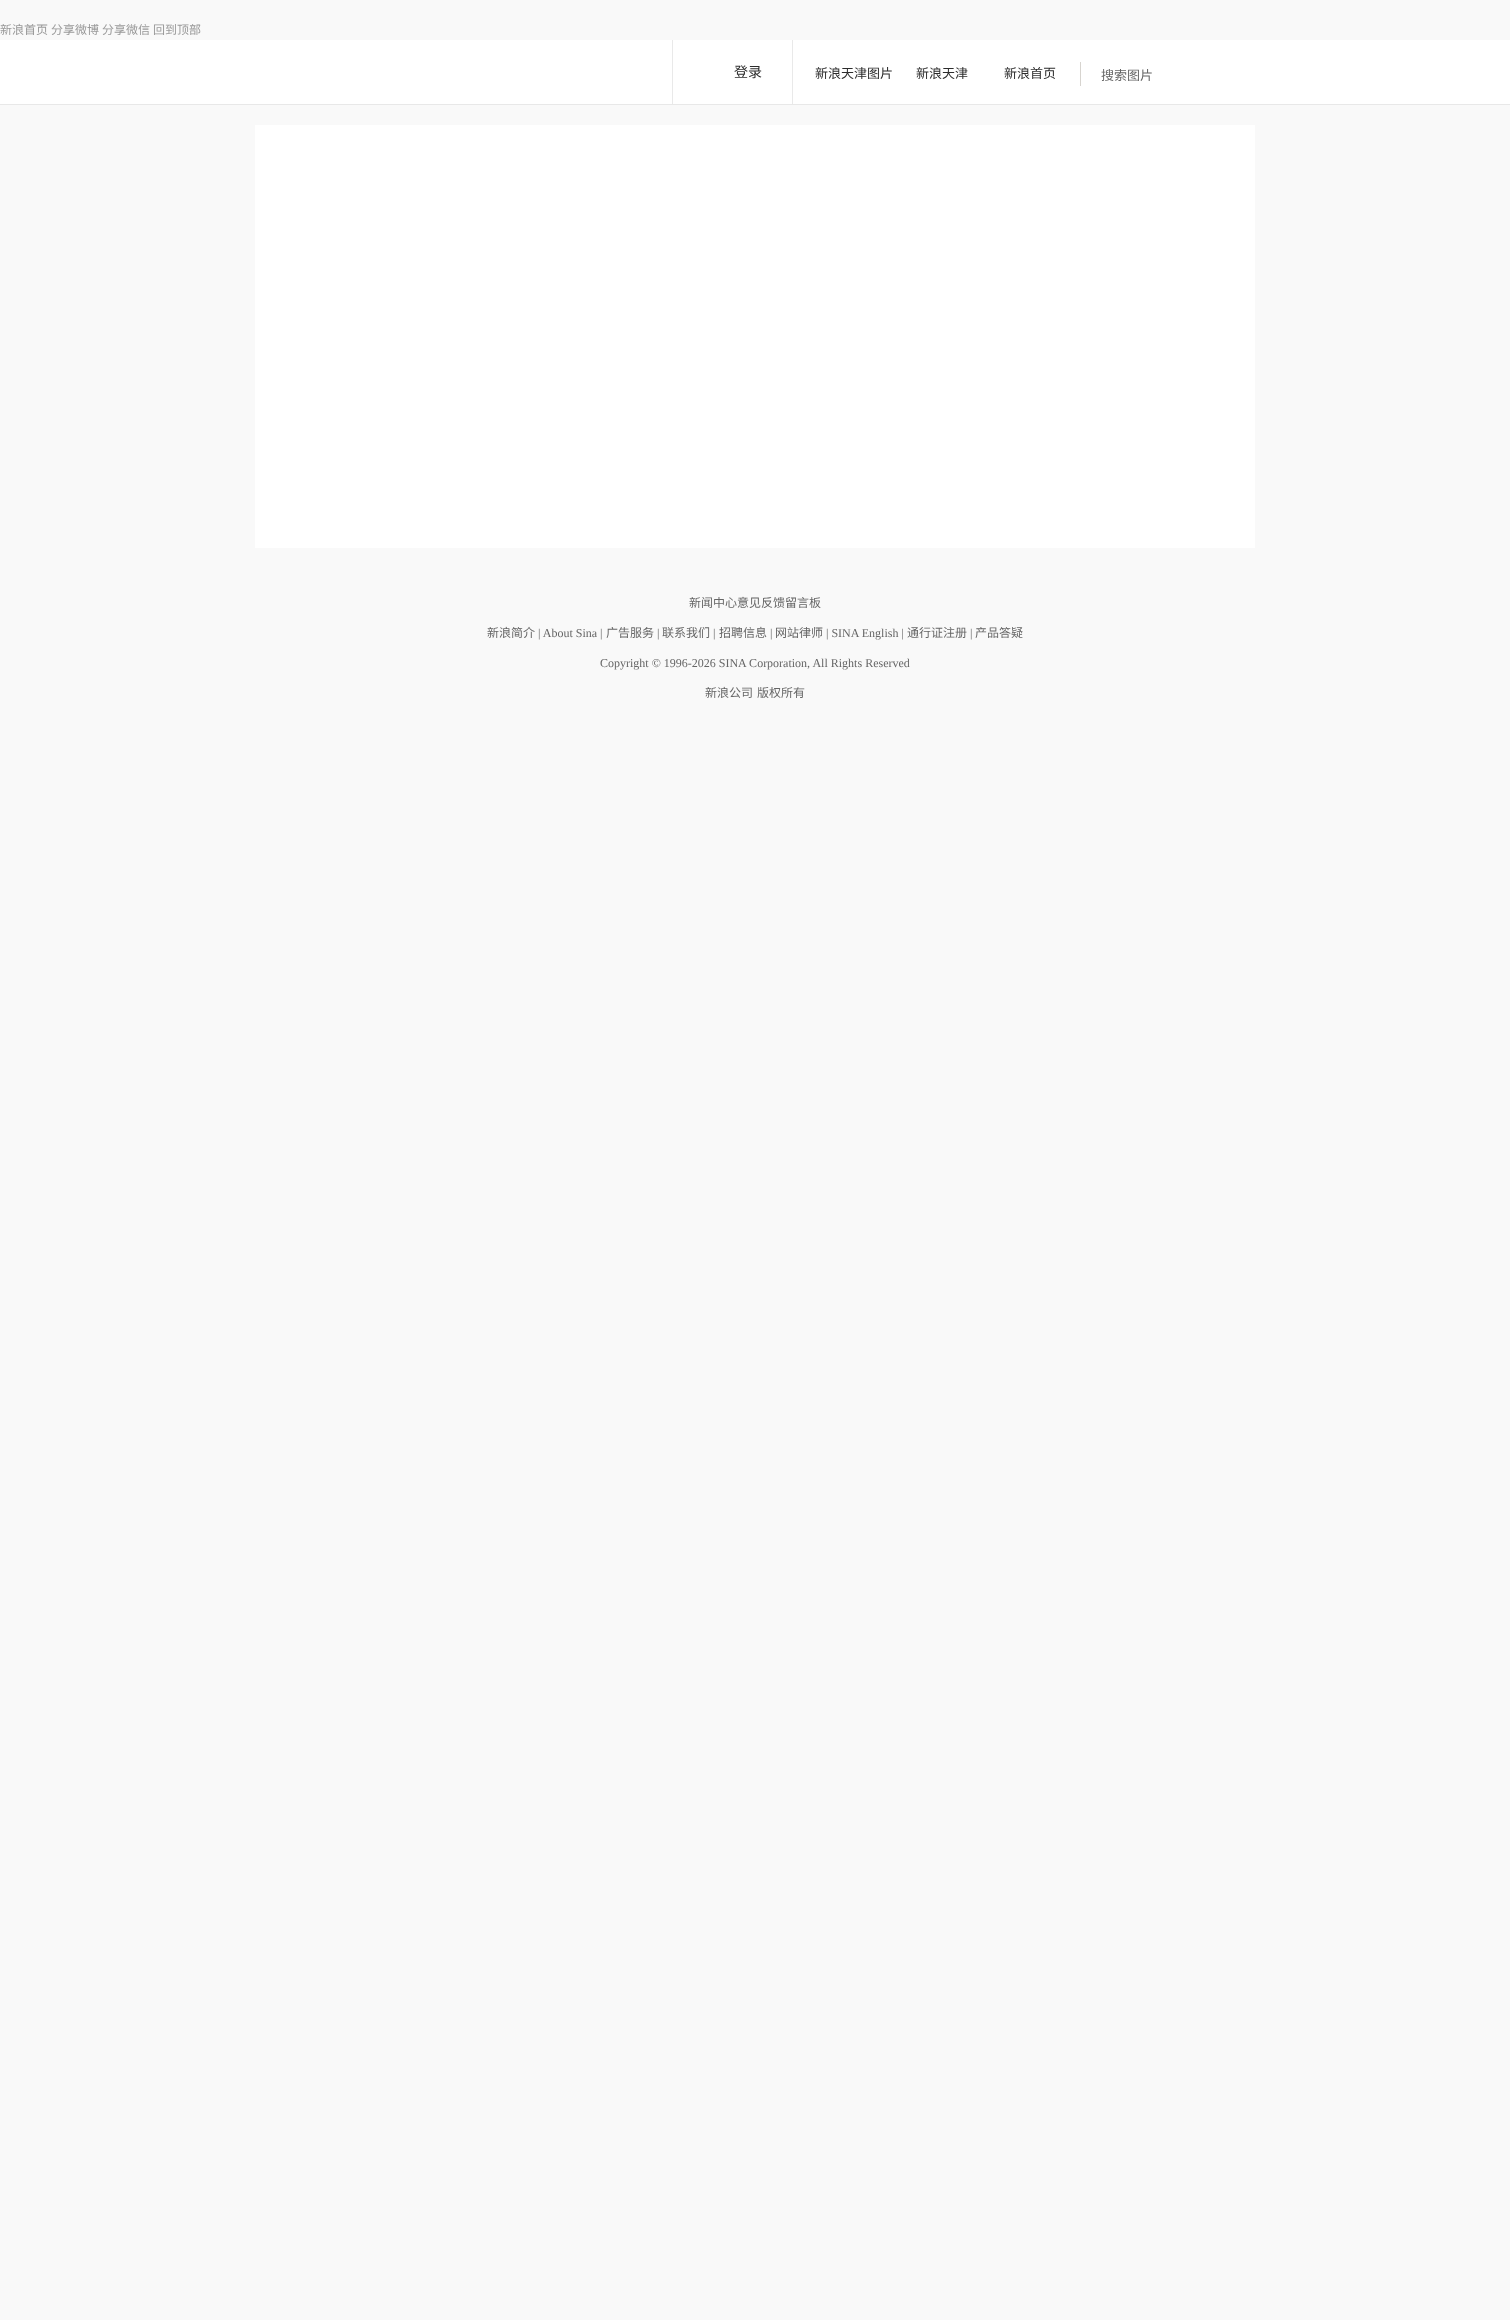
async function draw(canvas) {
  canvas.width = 1510;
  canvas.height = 2320;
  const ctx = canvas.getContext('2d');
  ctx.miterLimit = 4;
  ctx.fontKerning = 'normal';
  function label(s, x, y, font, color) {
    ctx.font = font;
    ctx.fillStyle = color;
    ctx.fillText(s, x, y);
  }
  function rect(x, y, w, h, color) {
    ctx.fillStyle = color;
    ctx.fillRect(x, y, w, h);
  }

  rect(0, 0, 1510, 2320, '#f9f9f9');
  label('新浪首页', 0, 34, '12px Noto Sans CJK SC', '#999');
  label('分享微博', 51, 34, '12px Noto Sans CJK SC', '#999');
  label('分享微信', 102, 34, '12px Noto Sans CJK SC', '#999');
  label('回到顶部', 153, 34, '12px Noto Sans CJK SC', '#999');
  rect(0, 40, 1510, 64, '#fff');
  rect(0, 104, 1510, 1, '#e8e8e8');
  rect(792, 40, 1, 64, '#e9e9e9');
  rect(672, 40, 1, 64, '#e9e9e9');
  label('登录', 734, 77, '14px Noto Sans CJK SC', '#2c2c2c');
  label('新浪天津图片', 815, 78, '13px Noto Sans CJK SC', '#2c2c2c');
  label('新浪天津', 916, 78, '13px Noto Sans CJK SC', '#2c2c2c');
  label('新浪首页', 1004, 78, '13px Noto Sans CJK SC', '#2c2c2c');
  rect(1080, 62, 1, 24, '#d7d4cf');
  label('搜索图片', 1101, 80, '13px Noto Sans CJK SC', '#666');
  rect(255, 125, 1000, 423, '#fff');
  label('新闻中心意见反馈留言板', 689, 607, '12px Noto Sans CJK SC', '#666');
  label('新浪简介', 487, 637, '12px Noto Sans CJK SC', '#666');
  label('| About Sina |', 538, 637, '12px Liberation Serif', '#666');
  label('广告服务', 606, 637, '12px Noto Sans CJK SC', '#666');
  label('|', 657, 637, '12px Liberation Serif', '#666');
  label('联系我们', 662, 637, '12px Noto Sans CJK SC', '#666');
  label('|', 713, 637, '12px Liberation Serif', '#666');
  label('招聘信息', 719, 637, '12px Noto Sans CJK SC', '#666');
  label('|', 770, 637, '12px Liberation Serif', '#666');
  label('网站律师', 775, 637, '12px Noto Sans CJK SC', '#666');
  label('| SINA English |', 826, 637, '12px Liberation Serif', '#666');
  label('通行证注册', 907, 637, '12px Noto Sans CJK SC', '#666');
  label('|', 970, 637, '12px Liberation Serif', '#666');
  label('产品答疑', 975, 637, '12px Noto Sans CJK SC', '#666');
  label('Copyright © 1996-2026 SINA Corporation, All Rights Reserved', 600, 667, '12px Liberation Serif', '#666');
  label('新浪公司', 705, 697, '12px Noto Sans CJK SC', '#666');
  label('版权所有', 757, 697, '12px Noto Sans CJK SC', '#666');
}

draw(document.querySelector('canvas'));
